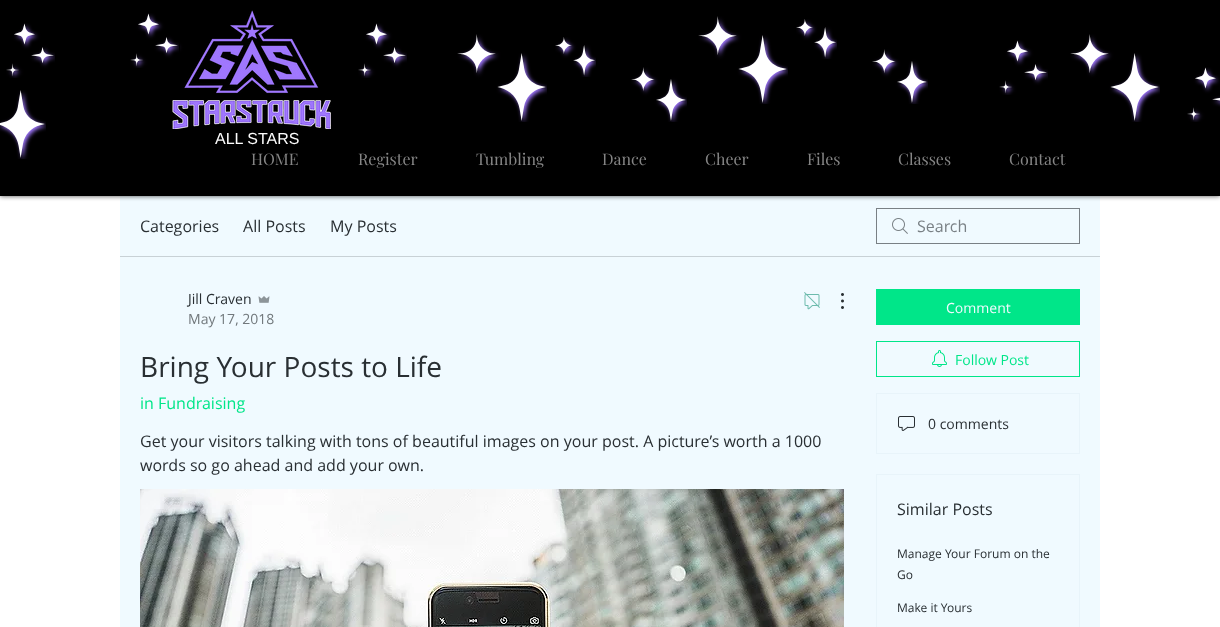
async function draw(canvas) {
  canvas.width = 1220;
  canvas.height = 627;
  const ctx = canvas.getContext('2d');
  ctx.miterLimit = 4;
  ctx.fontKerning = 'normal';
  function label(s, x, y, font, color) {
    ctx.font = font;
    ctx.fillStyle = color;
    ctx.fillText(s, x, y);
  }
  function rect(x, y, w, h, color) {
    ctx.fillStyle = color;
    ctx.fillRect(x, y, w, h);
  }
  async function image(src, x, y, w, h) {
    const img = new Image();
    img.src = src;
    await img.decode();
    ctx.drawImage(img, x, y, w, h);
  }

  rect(0, 0, 1220, 627, '#fff');
  rect(120, 196, 980, 431, '#f0faff');
  ctx.fillStyle = '#000000b3';
  ctx.filter = 'blur(2.5px)';
  ctx.beginPath();
  ctx.rect(0, 0, 1220, 196);
  ctx.fill();
  ctx.filter = 'none';
  rect(0, 0, 1220, 196, '#000');
  await image('assets/img1.png', 6, 23, 49, 55);
  await image('assets/img2.png', 130, 13, 49, 55);
  await image('assets/img1.png', 358, 23, 49, 55);
  await image('assets/img3.png', 457, 34, 90, 88);
  await image('assets/img4.png', 555, 37, 41, 40);
  await image('assets/img5.png', 631, 67, 56, 55);
  await image('assets/img3.png', 698, 16, 90, 88);
  await image('assets/img4.png', 796, 19, 41, 40);
  await image('assets/img6.png', 872, 49, 56, 55);
  await image('assets/img2.png', 999, 40, 49, 55);
  await image('assets/img3.png', 1070, 34, 90, 88);
  await image('assets/img7.png', 1187, 67, 33, 55);
  await image('assets/img8.png', 0, 90, 46, 69);
  await image('assets/img9.png', 180, 10, 139, 84);
  await image('assets/img10.png', 172, 100, 159, 29);
  label('ALL STARS', 215, 144, '16px Liberation Sans', '#fcfcfc');
  label('HOME', 251, 165, '16px Playfair Display', '#858585');
  label('Register', 358, 165, '16px Playfair Display', '#858585');
  label('Tumbling', 476, 165, '16px Playfair Display', '#858585');
  label('Dance', 602, 165, '16px Playfair Display', '#858585');
  label('Cheer', 705, 165, '16px Playfair Display', '#858585');
  label('Files', 807, 165, '16px Playfair Display', '#858585');
  label('Classes', 898, 165, '16px Playfair Display', '#858585');
  label('Contact', 1009, 165, '16px Playfair Display', '#858585');
  rect(120, 256, 980, 1, '#c8d1d6');
  label('Categories', 140, 232, '16px Open Sans', '#292f33');
  label('All Posts', 243, 232, '16px Open Sans', '#292f33');
  label('My Posts', 330, 232, '16px Open Sans', '#292f33');
  await image('assets/img11.png', 892, 218, 16, 16);
  ctx.strokeStyle = '#798085';
  ctx.strokeRect(876.5, 208.5, 203, 35);
  label('Search', 917, 232, '16px Open Sans', '#798085');
  label('Jill Craven', 188, 304, '14px Open Sans', '#292f33');
  await image('assets/img12.png', 258, 296, 12, 7);
  label('May 17, 2018', 188, 324, '14px Open Sans', '#71787c');
  await image('assets/img13.png', 804, 292, 16, 18);
  await image('assets/img14.png', 841, 293, 3, 16);
  label('Bring Your Posts to Life', 140, 377, '28px Open Sans', '#292f33');
  label('in Fundraising', 140, 409, '16px Open Sans', '#00e689');
  label('Get your visitors talking with tons of beautiful images on your post. A picture’s worth a 1000', 140, 447, '16px Open Sans', '#292f33');
  label('words so go ahead and add your own.', 140, 471, '16px Open Sans', '#292f33');
  await image('assets/img15.png', 140, 489, 704, 138);
  rect(876, 289, 204, 36, '#00e689');
  label('Comment', 946, 313, '14px Open Sans', '#f0faff');
  ctx.strokeStyle = '#00e689';
  ctx.strokeRect(876.5, 341.5, 203, 35);
  await image('assets/img16.png', 932, 350, 15, 17);
  label('Follow Post', 955, 365, '14px Open Sans', '#00e689');
  ctx.strokeStyle = '#e8f4fa';
  ctx.strokeRect(876.5, 393.5, 203, 60);
  await image('assets/img17.png', 898, 416, 17, 15);
  label('0 comments', 928, 429, '14px Open Sans', '#292f33');
  ctx.strokeRect(876.5, 474.5, 203, 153);
  label('Similar Posts', 897, 515, '16px Open Sans', '#292f33');
  label('Manage Your Forum on the', 897, 558, '12px Open Sans', '#292f33');
  label('Go', 897, 579, '12px Open Sans', '#292f33');
  label('Make it Yours', 897, 612, '12px Open Sans', '#292f33');
}

draw(document.querySelector('canvas'));
